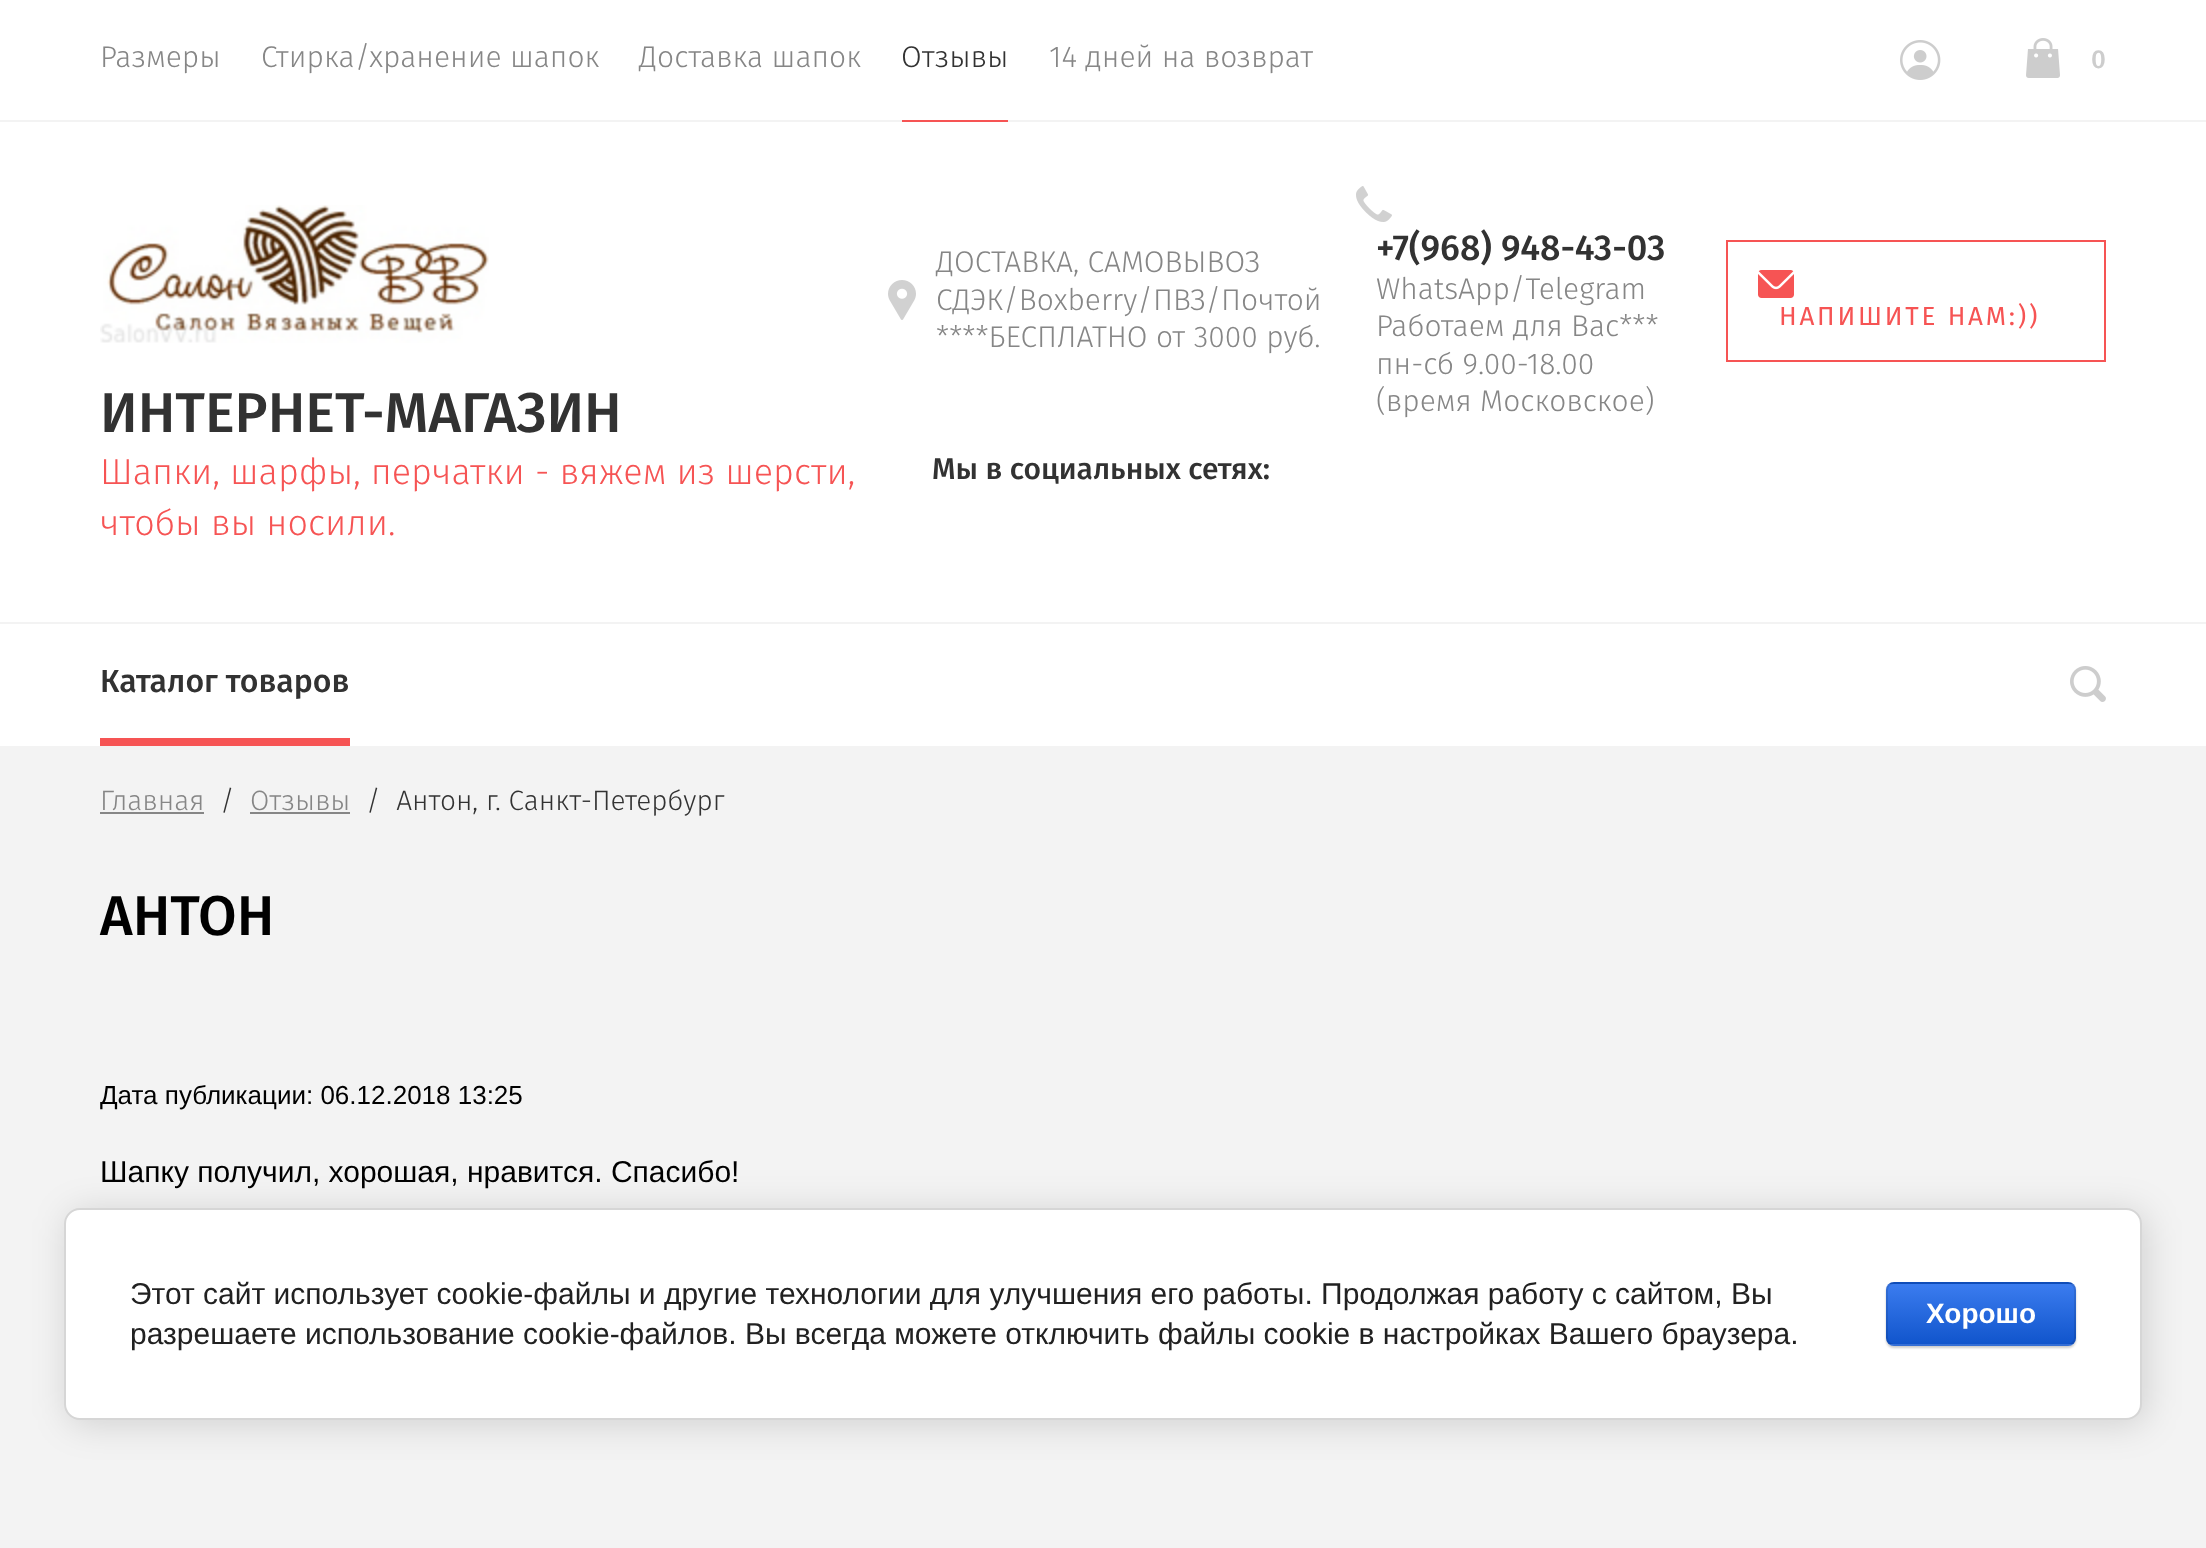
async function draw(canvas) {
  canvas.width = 2206;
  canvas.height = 1548;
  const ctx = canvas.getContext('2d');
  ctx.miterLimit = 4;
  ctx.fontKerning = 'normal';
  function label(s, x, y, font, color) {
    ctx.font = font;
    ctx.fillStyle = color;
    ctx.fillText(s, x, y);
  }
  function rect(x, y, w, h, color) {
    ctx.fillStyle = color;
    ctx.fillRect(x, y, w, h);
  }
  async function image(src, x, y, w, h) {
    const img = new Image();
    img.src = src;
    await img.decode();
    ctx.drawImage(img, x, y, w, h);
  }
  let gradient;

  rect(0, 0, 2206, 1548, '#f3f3f3');
  rect(0, 0, 2206, 746, '#fff');
  label('Размеры', 100, 67, '300 30px Fira Sans', '#868686');
  label('Стирка/хранение шапок', 261, 67, '300 30px Fira Sans', '#868686');
  label('Доставка шапок', 639, 67, '300 30px Fira Sans', '#868686');
  rect(0, 120, 2206, 2, '#f3f3f3');
  rect(902, 120, 106, 2, '#f65454');
  label('Отзывы', 901, 67, '300 30px Fira Sans', '#323232');
  label('14 дней на возврат', 1049, 67, '300 30px Fira Sans', '#868686');
  await image('assets/img1.png', 1900, 40, 41, 40);
  await image('assets/img2.png', 2026, 38, 34, 40);
  label('0', 2091, 68, '500 26px Fira Sans', '#cdcdcd');
  await image('assets/img3.png', 100, 205, 389, 138);
  label('ИНТЕРНЕТ-МАГАЗИН', 100, 432, '500 56px Fira Sans', '#323232');
  label('Шапки, шарфы, перчатки - вяжем из шерсти,', 100, 484, '300 36px Fira Sans', '#f65454');
  label('чтобы вы носили.', 100, 535, '300 36px Fira Sans', '#f65454');
  await image('assets/img4.png', 888, 280, 28, 40);
  label('ДОСТАВКА, САМОВЫВОЗ', 936, 272, '300 30px Fira Sans', '#868686');
  label('СДЭК/Boxberry/ПВЗ/Почтой', 936, 310, '300 30px Fira Sans', '#868686');
  label('****БЕСПЛАТНО от 3000 руб.', 936, 347, '300 30px Fira Sans', '#868686');
  await image('assets/img5.png', 1356, 186, 36, 36);
  label('+7(968) 948-43-03', 1376, 260, '500 36px Fira Sans', '#323232');
  label('WhatsApp/Telegram', 1376, 299, '300 30px Fira Sans', '#868686');
  label('Работаем для Вас***', 1376, 336, '300 30px Fira Sans', '#868686');
  label('пн-сб 9.00-18.00', 1376, 374, '300 30px Fira Sans', '#868686');
  label('(время Московское)', 1376, 411, '300 30px Fira Sans', '#868686');
  ctx.strokeStyle = '#f65454';
  ctx.lineWidth = 2;
  ctx.strokeRect(1727, 241, 378, 120);
  await image('assets/img6.png', 1758, 270, 36, 28);
  ctx.letterSpacing = '2.75px';
  label('НАПИШИТЕ НАМ:))', 1779, 325, '26px Fira Sans', '#f65454');
  ctx.letterSpacing = '0px';
  label('Мы в социальных сетях:', 932, 479, '500 30px Fira Sans', '#323232');
  rect(0, 622, 2206, 2, '#f3f3f3');
  rect(100, 738, 250, 8, '#f65454');
  label('Каталог товаров', 100, 692, '500 32px Fira Sans', '#323232');
  await image('assets/img7.png', 2070, 666, 36, 36);
  label('Главная', 100, 810, '300 28px Fira Sans', '#868686');
  rect(100, 812, 104, 2, '#868686');
  label('/', 220, 810, '300 28px Fira Sans', '#323232');
  label('Отзывы', 250, 810, '300 28px Fira Sans', '#868686');
  rect(250, 812, 100, 2, '#868686');
  label('/  Антон, г. Санкт-Петербург', 366, 810, '300 28px Fira Sans', '#323232');
  label('АНТОН', 100, 935, '500 56px Fira Sans', '#000');
  label('Дата публикации: 06.12.2018 13:25', 100, 1104, '26px Liberation Sans', '#000');
  label('Шапку получил, хорошая, нравится. Спасибо!', 100, 1182, '30px Liberation Sans', '#000');
  ctx.fillStyle = '#00000024';
  ctx.filter = 'blur(18px)';
  ctx.beginPath();
  ctx.roundRect(68, 1212, 2078, 212, 16);
  ctx.fill();
  ctx.filter = 'none';
  ctx.fillStyle = '#fff';
  ctx.beginPath();
  ctx.roundRect(65, 1209, 2076, 210, 15);
  ctx.fill();
  ctx.strokeStyle = '#d6d6d6';
  ctx.stroke();
  label('Этот сайт использует cookie-файлы и другие технологии для улучшения его работы. Продолжая работу с сайтом, Вы', 130, 1304, '30px Liberation Sans', '#212121');
  label('разрешаете использование cookie-файлов. Вы всегда можете отключить файлы cookie в настройках Вашего браузера.', 130, 1344, '30px Liberation Sans', '#212121');
  ctx.fillStyle = '#00000033';
  ctx.filter = 'blur(1px)';
  ctx.beginPath();
  ctx.roundRect(1886, 1284, 190, 64, 8);
  ctx.fill();
  ctx.filter = 'none';
  ctx.save();
  ctx.beginPath();
  ctx.roundRect(1886, 1282, 190, 64, 8);
  ctx.clip();
  gradient = ctx.createLinearGradient(1981, 1224, 1981, 1284);
  gradient.addColorStop(0, '#3b7cef');
  gradient.addColorStop(1, '#15c');
  ctx.fillStyle = gradient;
  ctx.fillRect(1886, 1282, 190, 2);
  gradient = ctx.createLinearGradient(1981, 1284, 1981, 1344);
  gradient.addColorStop(0, '#3b7cef');
  gradient.addColorStop(1, '#15c');
  ctx.fillStyle = gradient;
  ctx.fillRect(1886, 1284, 190, 60);
  gradient = ctx.createLinearGradient(1981, 1344, 1981, 1404);
  gradient.addColorStop(0, '#3b7cef');
  gradient.addColorStop(1, '#15c');
  ctx.fillStyle = gradient;
  ctx.fillRect(1886, 1344, 190, 2);
  ctx.restore();
  ctx.beginPath();
  ctx.roundRect(1887, 1283, 188, 62, 7);
  ctx.strokeStyle = '#0000001a';
  ctx.stroke();
  label('Хорошо', 1926, 1323, 'bold 28px Liberation Sans', '#fff');
}

draw(document.querySelector('canvas'));
